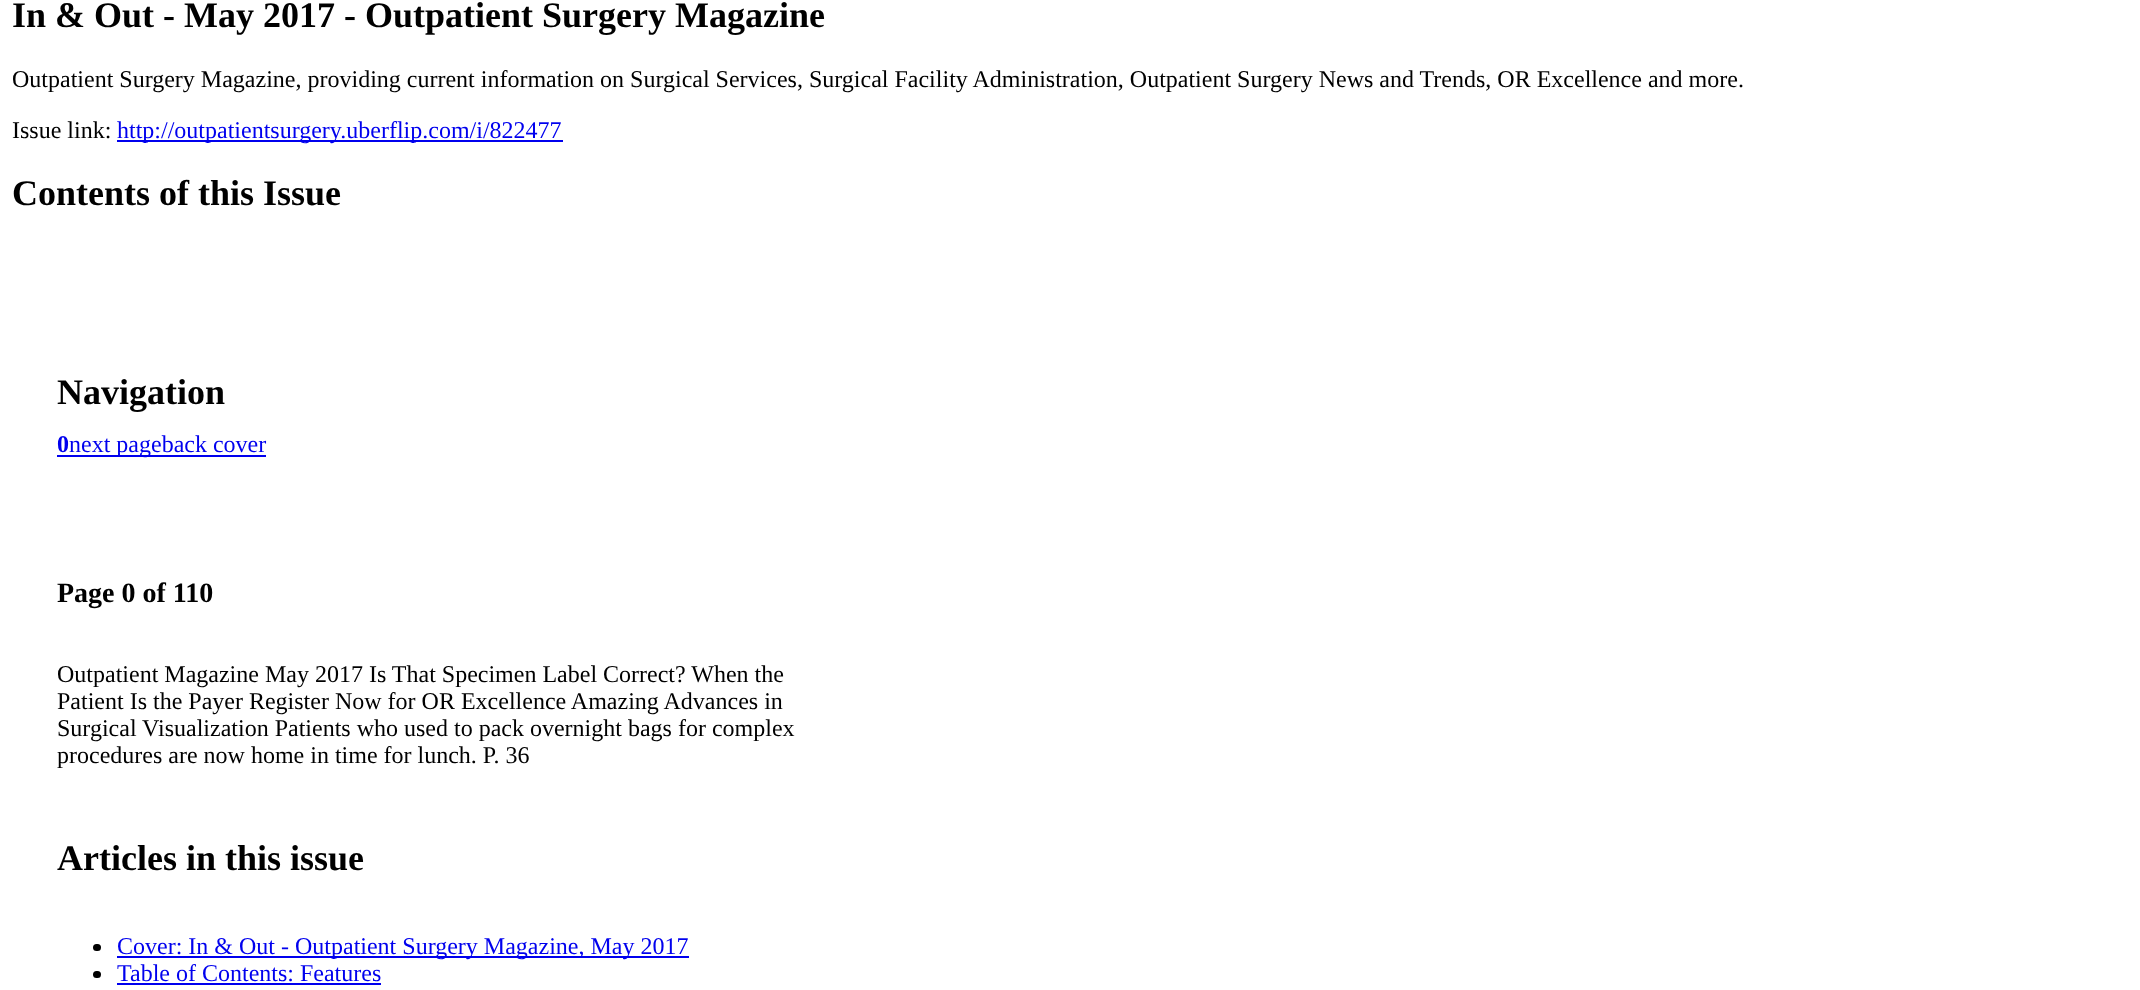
async function draw(canvas) {
  canvas.width = 2140;
  canvas.height = 990;
  const ctx = canvas.getContext('2d');
  ctx.miterLimit = 4;
  ctx.fontKerning = 'normal';
  function label(s, x, y, font, color) {
    ctx.font = font;
    ctx.fillStyle = color;
    ctx.fillText(s, x, y);
  }
  function rect(x, y, w, h, color) {
    ctx.fillStyle = color;
    ctx.fillRect(x, y, w, h);
  }
  function roundedRect(x, y, w, h, r, color) {
    ctx.fillStyle = color;
    ctx.beginPath();
    ctx.roundRect(x, y, w, h, r);
    ctx.fill();
  }

  rect(0, 0, 2140, 990, '#fff');
  label('In & Out - May 2017 - Outpatient Surgery Magazine', 12, 27, 'bold 36px Liberation Serif', '#000');
  label('Outpatient Surgery Magazine, providing current information on Surgical Services, Surgical Facility Administration, Outpatient Surgery News and Trends, OR Excellence and more.', 12, 87, '24px Liberation Serif', '#000');
  label('Issue link:', 12, 138, '24px Liberation Serif', '#000');
  rect(117, 140, 446, 2, '#00e');
  label('http://outpatientsurgery.uberflip.com/i/822477', 117, 138, '24px Liberation Serif', '#00e');
  label('Contents of this Issue', 12, 205, 'bold 36px Liberation Serif', '#000');
  label('Navigation', 57, 404, 'bold 36px Liberation Serif', '#000');
  label('0', 57, 452, 'bold 24px Liberation Serif', '#00e');
  rect(57, 455, 209, 2, '#00e');
  label('next pageback cover', 69, 452, '24px Liberation Serif', '#00e');
  label('Page 0 of 110', 57, 602, 'bold 28px Liberation Serif', '#000');
  label('Outpatient Magazine May 2017 Is That Specimen Label Correct? When the', 57, 682, '24px Liberation Serif', '#000');
  label('Patient Is the Payer Register Now for OR Excellence Amazing Advances in', 57, 709, '24px Liberation Serif', '#000');
  label('Surgical Visualization Patients who used to pack overnight bags for complex', 57, 736, '24px Liberation Serif', '#000');
  label('procedures are now home in time for lunch. P. 36', 57, 763, '24px Liberation Serif', '#000');
  label('Articles in this issue', 57, 870, 'bold 36px Liberation Serif', '#000');
  roundedRect(93, 944, 8, 7, 3.5, '#000');
  rect(117, 956, 572, 2, '#00e');
  label('Cover: In & Out - Outpatient Surgery Magazine, May 2017', 117, 954, '24px Liberation Serif', '#00e');
  roundedRect(93, 971, 8, 7, 3.5, '#000');
  label('Table of Contents: Features', 117, 981, '24px Liberation Serif', '#00e');
  rect(117, 983, 264, 2, '#00e');
}

draw(document.querySelector('canvas'));
